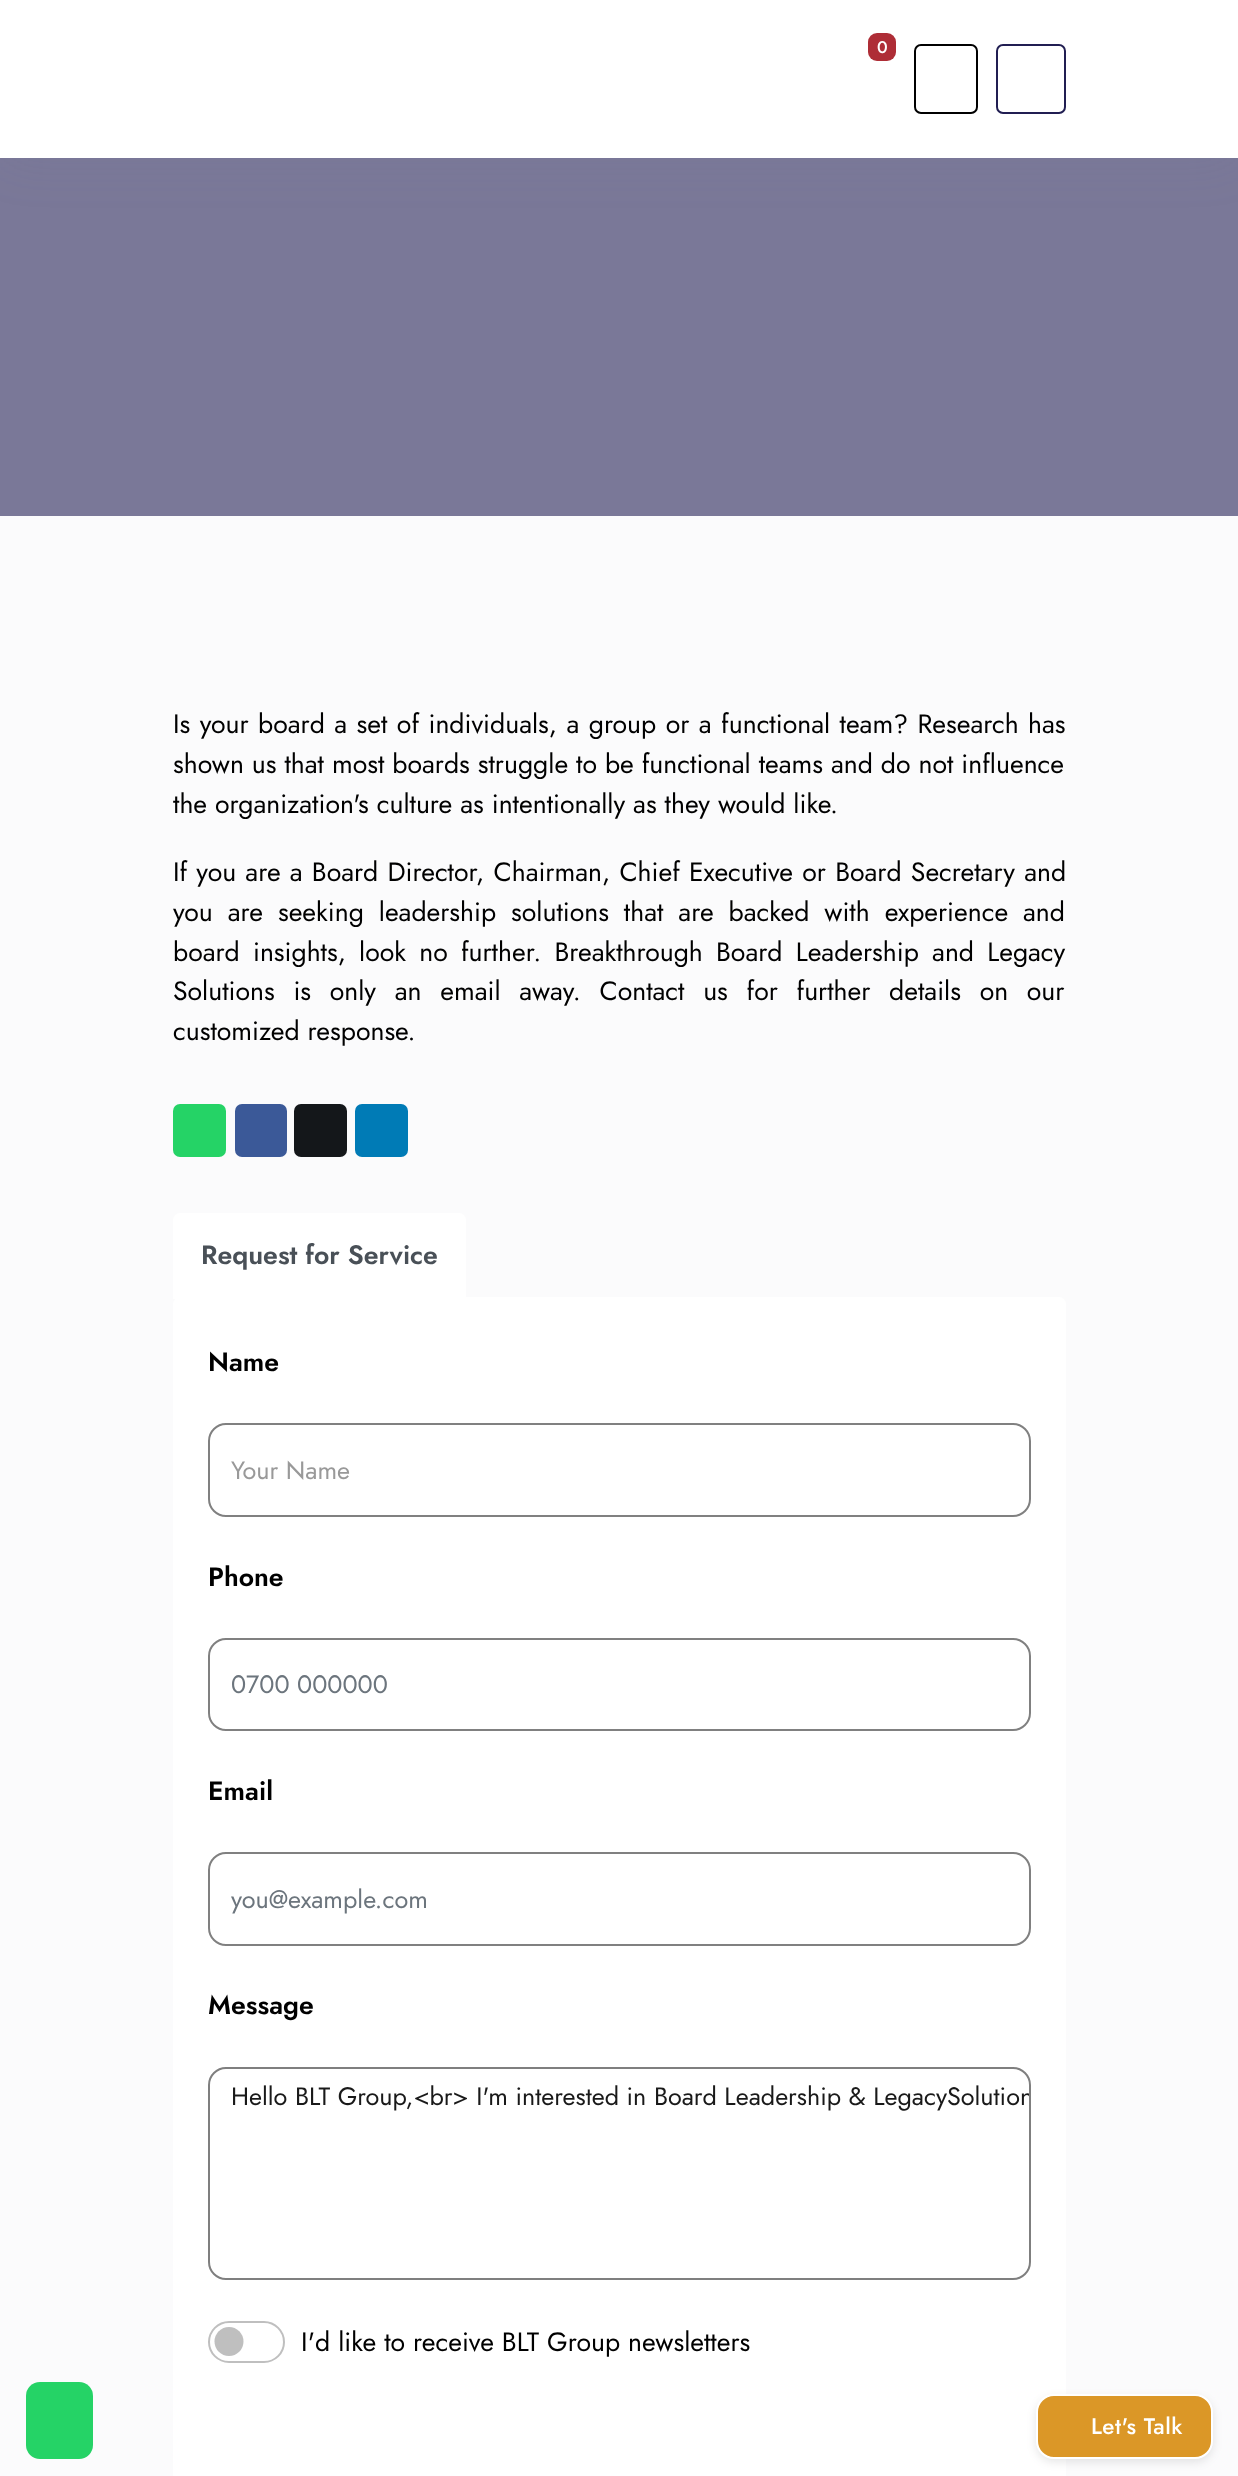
async function draw(canvas) {
  canvas.width = 1238;
  canvas.height = 2476;
  const ctx = canvas.getContext('2d');
  ctx.miterLimit = 4;
  ctx.fontKerning = 'normal';
  function label(s, x, y, font, color) {
    ctx.font = font;
    ctx.fillStyle = color;
    ctx.fillText(s, x, y);
  }
  function rect(x, y, w, h, color) {
    ctx.fillStyle = color;
    ctx.fillRect(x, y, w, h);
  }
  function roundedRect(x, y, w, h, r, color) {
    ctx.fillStyle = color;
    ctx.beginPath();
    ctx.roundRect(x, y, w, h, r);
    ctx.fill();
  }

  rect(0, 0, 1238, 2476, '#fbfbfc');
  rect(0, 158, 1238, 358, '#7a7898');
  ctx.fillStyle = '#73809d1a';
  ctx.filter = 'blur(26px)';
  ctx.beginPath();
  ctx.rect(0, 0, 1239, 158);
  ctx.fill();
  ctx.filter = 'none';
  rect(0, 0, 1238, 158, '#fff');
  roundedRect(868, 33, 28, 28, 9, '#ae2d36');
  label('0', 877, 53, '500 17px Jost', '#fff');
  ctx.beginPath();
  ctx.roundRect(915, 45, 62, 68, 6);
  ctx.strokeStyle = '#000';
  ctx.lineWidth = 2;
  ctx.stroke();
  ctx.beginPath();
  ctx.roundRect(997, 45, 68, 68, 6);
  ctx.strokeStyle = '#211e52';
  ctx.stroke();
  ctx.wordSpacing = '1.5px';
  label('Is your board a set of individuals, a group or a functional team? Research has', 173, 733, '26.6px Jost', '#000');
  ctx.wordSpacing = '0px';
  label('shown us that most boards struggle to be functional teams and do not influence', 173, 773, '26.6px Jost', '#000');
  label('the organization\'s culture as intentionally as they would like.', 173, 813, '26.6px Jost', '#000');
  ctx.wordSpacing = '1.25px';
  label('If you are a Board Director, Chairman, Chief Executive or Board Secretary and', 173, 881, '26.6px Jost', '#000');
  ctx.wordSpacing = '7px';
  label('you are seeking leadership solutions that are backed with experience and', 173, 921, '26.6px Jost', '#000');
  ctx.wordSpacing = '5.25px';
  label('board insights, look no further. Breakthrough Board Leadership and Legacy', 173, 961, '26.6px Jost', '#000');
  ctx.wordSpacing = '10.75px';
  label('Solutions is only an email away. Contact us for further details on our', 173, 1000, '26.6px Jost', '#000');
  ctx.wordSpacing = '0px';
  label('customized response.', 173, 1040, '26.6px Jost', '#000');
  roundedRect(173, 1104, 53, 53, 7, '#25d366');
  roundedRect(235, 1104, 52, 53, 7, '#3b5998');
  roundedRect(294, 1104, 53, 53, 7, '#14171a');
  roundedRect(355, 1104, 53, 53, 7, '#007bb6');
  roundedRect(173, 1297, 893, 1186, 7, '#fff');
  ctx.beginPath();
  ctx.roundRect(173, 1213, 293, 86, [7, 7, 0, 0]);
  ctx.fill();
  label('Request for Service', 201, 1264, '600 26.6px Jost', '#495057');
  label('Name', 208, 1371, '600 26.6px Jost', '#000');
  ctx.beginPath();
  ctx.roundRect(209, 1424, 821, 92, 17);
  ctx.strokeStyle = '#808080';
  ctx.stroke();
  label('Your Name', 231, 1479, '25.2px Jost', '#999');
  label('Phone', 208, 1586, '600 26.6px Jost', '#000');
  ctx.beginPath();
  ctx.roundRect(209, 1639, 821, 91, 17);
  ctx.stroke();
  label('0700 000000', 231, 1693, '25.2px Jost', '#6c757d');
  label('Email', 208, 1800, '600 26.6px Jost', '#000');
  ctx.beginPath();
  ctx.roundRect(209, 1853, 821, 92, 17);
  ctx.stroke();
  label('you@example.com', 231, 1908, '25.2px Jost', '#6c757d');
  label('Message', 208, 2014, '600 26.6px Jost', '#000');
  ctx.beginPath();
  ctx.roundRect(209, 2068, 821, 211, 17);
  ctx.strokeStyle = '#7f7f7f';
  ctx.stroke();
  label('Hello BLT Group,<br> I\'m interested in Board Leadership & Legacy', 231, 2105, '25.2px Jost', '#191919');
  ctx.save();
  ctx.beginPath();
  ctx.roundRect(210, 2069, 819, 210, 16);
  ctx.clip();
  label('Solution', 947, 2105, '25.2px Jost', '#191919');
  ctx.restore();
  ctx.fillStyle = '#bfbfbf';
  ctx.beginPath();
  ctx.arc(229, 2341.5, 14.5, 0, 2 * Math.PI);
  ctx.fill();
  ctx.beginPath();
  ctx.roundRect(209, 2322, 75, 40, 20);
  ctx.strokeStyle = '#bfbfbf';
  ctx.stroke();
  label('I\'d like to receive BLT Group newsletters', 301, 2351, '26.6px Jost', '#000');
  roundedRect(26, 2382, 67, 77, 14, '#25d366');
  ctx.fillStyle = '#0000001a';
  ctx.filter = 'blur(5px)';
  ctx.beginPath();
  ctx.roundRect(1036, 2398, 177, 64, 18);
  ctx.fill();
  ctx.filter = 'none';
  ctx.fillStyle = '#db9727';
  ctx.beginPath();
  ctx.roundRect(1037, 2395, 175, 63, 17);
  ctx.fill();
  ctx.strokeStyle = '#fff';
  ctx.stroke();
  ctx.letterSpacing = '0.5px';
  label('Let\'s Talk', 1091, 2434, '500 22.5px Jost', '#fff');
}

draw(document.querySelector('canvas'));
